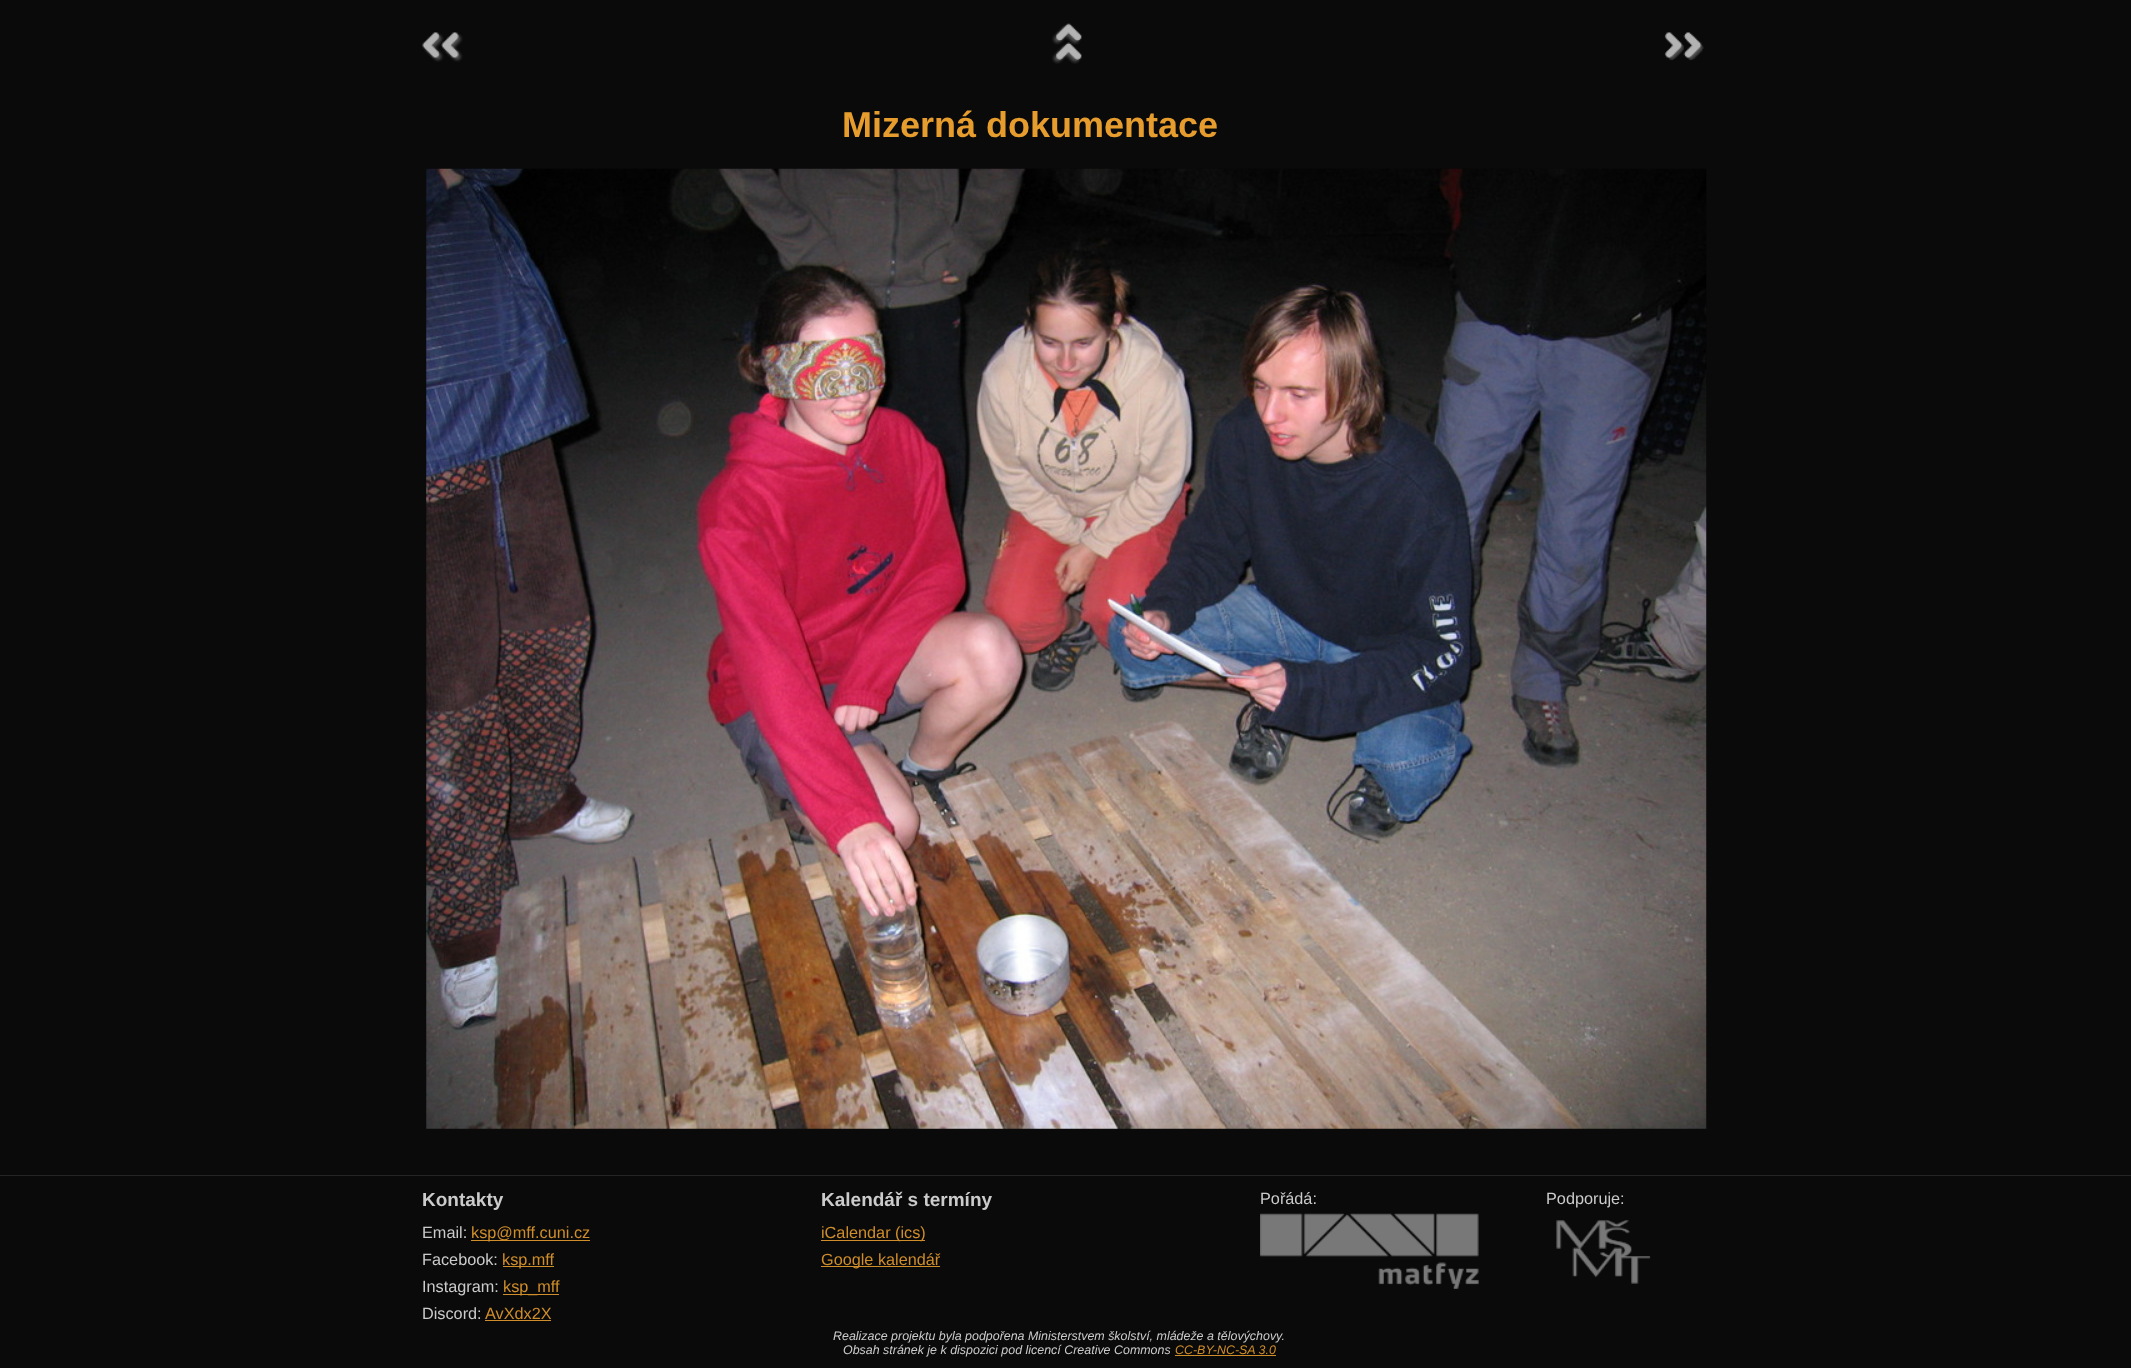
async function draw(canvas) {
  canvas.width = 2131;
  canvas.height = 1368;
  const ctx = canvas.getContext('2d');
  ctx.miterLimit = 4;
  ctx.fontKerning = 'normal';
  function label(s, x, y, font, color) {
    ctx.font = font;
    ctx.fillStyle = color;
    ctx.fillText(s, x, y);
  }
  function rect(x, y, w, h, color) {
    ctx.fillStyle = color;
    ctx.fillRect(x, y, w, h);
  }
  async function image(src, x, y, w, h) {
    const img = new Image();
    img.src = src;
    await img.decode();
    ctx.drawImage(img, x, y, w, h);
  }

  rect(0, 0, 2131, 1368, '#0a0a0a');
  await image('assets/img1.png', 422, 32, 41, 30);
  await image('assets/img2.png', 1052, 23, 30, 41);
  await image('assets/img3.png', 1664, 32, 40, 29);
  label('Mizerná dokumentace', 842, 137, 'bold 36px Liberation Sans', '#e69d2e');
  await image('assets/img4.png', 426, 168, 1281, 961);
  rect(0, 1175, 2131, 1, '#252726');
  label('Kontakty', 422, 1206, 'bold 19px Liberation Sans', '#cbcbcb');
  label('Email:', 422, 1238, '16.25px Liberation Sans', '#cbcbcb');
  rect(471, 1240, 119, 1, '#d08e2a');
  label('ksp@mff.cuni.cz', 471, 1238, '16.25px Liberation Sans', '#d08e2a');
  label('Facebook:', 422, 1265, '16.25px Liberation Sans', '#cbcbcb');
  rect(503, 1266, 51, 1, '#d08e2a');
  label('ksp.mff', 502, 1265, '16.25px Liberation Sans', '#d08e2a');
  label('Instagram:', 422, 1292, '16.25px Liberation Sans', '#cbcbcb');
  rect(503, 1294, 56, 1, '#d08e2a');
  label('ksp_mff', 503, 1292, '16.25px Liberation Sans', '#d08e2a');
  label('Discord:', 422, 1319, '16.25px Liberation Sans', '#cbcbcb');
  label('AvXdx2X', 485, 1319, '16.25px Liberation Sans', '#d08e2a');
  rect(485, 1320, 66, 1, '#d08e2a');
  label('Kalendář s termíny', 821, 1206, 'bold 19px Liberation Sans', '#cbcbcb');
  rect(821, 1240, 104, 1, '#d08e2a');
  label('iCalendar (ics)', 821, 1238, '16.25px Liberation Sans', '#d08e2a');
  rect(821, 1266, 119, 1, '#d08e2a');
  label('Google kalendář', 821, 1265, '16.25px Liberation Sans', '#d08e2a');
  label('Pořádá:', 1260, 1204, '16.25px Liberation Sans', '#cbcbcb');
  await image('assets/img5.png', 1260, 1213, 219, 76);
  label('Podporuje:', 1546, 1204, '16.25px Liberation Sans', '#cbcbcb');
  await image('assets/img6.png', 1556, 1220, 95, 64);
  label('Realizace projektu byla podpořena Ministerstvem školství, mládeže a tělovýchovy.', 833, 1340, 'italic 12.45px Liberation Sans', '#cbcbcb');
  label('Obsah stránek je k dispozici pod licencí Creative Commons', 843, 1354, 'italic 12.45px Liberation Sans', '#cbcbcb');
  label('CC-BY-NC-SA 3.0', 1175, 1354, 'italic 12.45px Liberation Sans', '#d08e2a');
  rect(1175, 1355, 101, 1, '#d08e2a');
}

draw(document.querySelector('canvas'));
